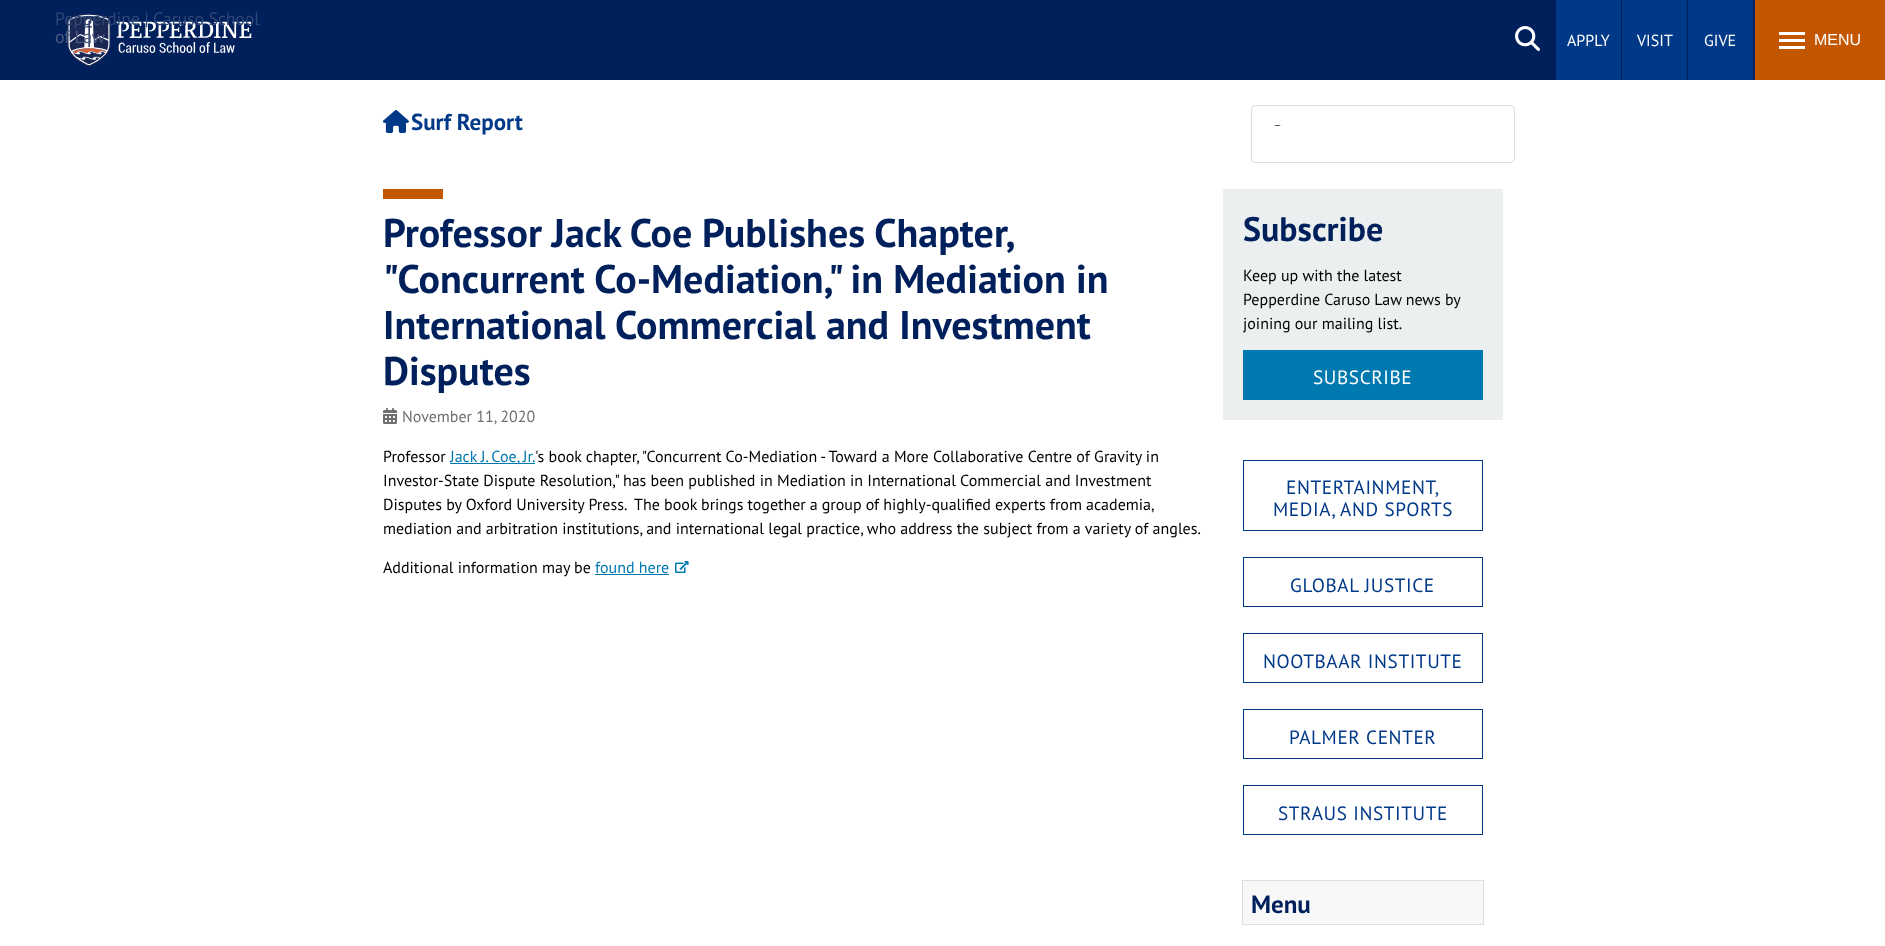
async function draw(canvas) {
  canvas.width = 1885;
  canvas.height = 946;
  const ctx = canvas.getContext('2d');
  ctx.miterLimit = 4;
  ctx.fontKerning = 'normal';
  function label(s, x, y, font, color) {
    ctx.font = font;
    ctx.fillStyle = color;
    ctx.fillText(s, x, y);
  }
  function rect(x, y, w, h, color) {
    ctx.fillStyle = color;
    ctx.fillRect(x, y, w, h);
  }
  async function image(src, x, y, w, h) {
    const img = new Image();
    img.src = src;
    await img.decode();
    ctx.drawImage(img, x, y, w, h);
  }

  rect(0, 0, 1885, 946, '#fff');
  rect(0, 0, 1755, 80, '#00205c');
  await image('assets/img1.png', 67, 13, 185, 54);
  ctx.letterSpacing = '-0.2px';
  label('Pepperdine | Caruso School', 55, 25, '18px PT Sans', '#2f4776');
  label('of Law', 55, 43, '18px PT Sans', '#4b5a80');
  await image('assets/img2.png', 1515, 26, 25, 25);
  rect(1556, 0, 65, 80, '#003988');
  ctx.letterSpacing = '0px';
  label('APPLY', 1567, 46, '16px PT Sans', '#fff');
  rect(1622, 0, 65, 80, '#003988');
  label('VISIT', 1637, 46, '16px PT Sans', '#fff');
  rect(1688, 0, 65, 80, '#003988');
  label('GIVE', 1704, 46, '16px PT Sans', '#fff');
  rect(1755, 0, 130, 80, '#c25700');
  rect(1779, 32, 26, 3, '#fff');
  rect(1779, 39, 26, 3, '#fff');
  rect(1779, 46, 26, 3, '#fff');
  label('MENU', 1814, 45, '16px Liberation Sans', '#fff');
  await image('assets/img3.png', 383, 110, 26, 23);
  label('Surf Report', 411, 130, 'bold 23px PT Sans', '#003988');
  ctx.beginPath();
  ctx.roundRect(1251.5, 105.5, 263, 57, 3.5);
  ctx.strokeStyle = '#dadfe1';
  ctx.stroke();
  await image('assets/img4.png', 1274, 125, 7, 1);
  rect(383, 189, 60, 10, '#c25700');
  ctx.wordSpacing = '-0.5px';
  label('Professor Jack Coe Publishes Chapter,', 383, 247, 'bold 40px PT Sans', '#00205c');
  ctx.wordSpacing = '0px';
  label('"Concurrent Co-Mediation," in Mediation in', 383, 293, 'bold 40px PT Sans', '#00205c');
  label('International', 383, 339, 'bold 40px PT Sans', '#00205c');
  label('Commercial and Investment', 615, 339, 'bold 40px PT Sans', '#00205c');
  label('Disputes', 383, 385, 'bold 40px PT Sans', '#00205c');
  await image('assets/img5.png', 383, 408, 14, 16);
  label('November 11, 2020', 402, 422, '16px PT Sans', '#6f6f6f');
  label('Professor', 383, 462, '16px PT Sans', '#000');
  rect(450, 463, 85, 1, '#0078b0');
  ctx.wordSpacing = '-0.5px';
  label('Jack J. Coe, Jr.', 450, 462, '16px PT Sans', '#0078b0');
  ctx.wordSpacing = '0px';
  label('\'s book chapter, "Concurrent Co-Mediation - Toward a More Collaborative Centre of Gravity in', 535, 462, '16px PT Sans', '#000');
  label('Investor-State Dispute Resolution," has been published in Mediation in International Commercial and Investment', 383, 486, '16px PT Sans', '#000');
  label('Disputes by Oxford University Press.  The', 383, 510, '16px PT Sans', '#000');
  ctx.wordSpacing = '-0.25px';
  label('book brings together a group of highly-qualified experts from academia,', 664, 510, '16px PT Sans', '#000');
  ctx.wordSpacing = '0px';
  label('mediation and arbitration institutions, and international legal practice, who address the subject from a variety of angles.', 383, 534, '16px PT Sans', '#000');
  label('Additional information may be', 383, 573, '16px PT Sans', '#000');
  label('found here', 595, 573, '16px PT Sans', '#0078b0');
  rect(595, 574, 74, 1, '#0078b0');
  await image('assets/img6.png', 675, 561, 14, 12);
  rect(1223, 189, 280, 231, '#eceff0');
  label('Subscribe', 1243, 241, 'bold 34px PT Sans', '#00205c');
  label('Keep up with the latest', 1243, 281, '16px PT Sans', '#000');
  ctx.wordSpacing = '-0.25px';
  label('Pepperdine Caruso Law news by', 1243, 305, '16px PT Sans', '#000');
  ctx.wordSpacing = '0px';
  label('joining our mailing list.', 1243, 329, '16px PT Sans', '#000');
  rect(1243, 350, 240, 50, '#0078b0');
  ctx.letterSpacing = '0.6px';
  label('SUBSCRIBE', 1313, 384, '19.25px PT Sans', '#fff');
  ctx.strokeStyle = '#003988';
  ctx.strokeRect(1243.5, 460.5, 239, 70);
  label('ENTERTAINMENT,', 1286, 494, '19.25px PT Sans', '#003988');
  label('MEDIA, AND SPORTS', 1273, 516, '19.25px PT Sans', '#003988');
  ctx.strokeRect(1243.5, 557.5, 239, 49);
  label('GLOBAL JUSTICE', 1290, 592, '19.25px PT Sans', '#003988');
  ctx.strokeRect(1243.5, 633.5, 239, 49);
  label('NOOTBAAR INSTITUTE', 1263, 668, '19.25px PT Sans', '#003988');
  ctx.strokeRect(1243.5, 709.5, 239, 49);
  label('PALMER CENTER', 1289, 744, '19.25px PT Sans', '#003988');
  ctx.strokeRect(1243.5, 785.5, 239, 49);
  label('STRAUS INSTITUTE', 1278, 820, '19.25px PT Sans', '#003988');
  rect(1243, 881, 240, 43, '#f8f8f8');
  ctx.strokeStyle = '#dadfe1';
  ctx.strokeRect(1242.5, 880.5, 241, 44);
  ctx.letterSpacing = '0px';
  label('Menu', 1251, 913, 'bold 25px PT Sans', '#00205c');
}

draw(document.querySelector('canvas'));
